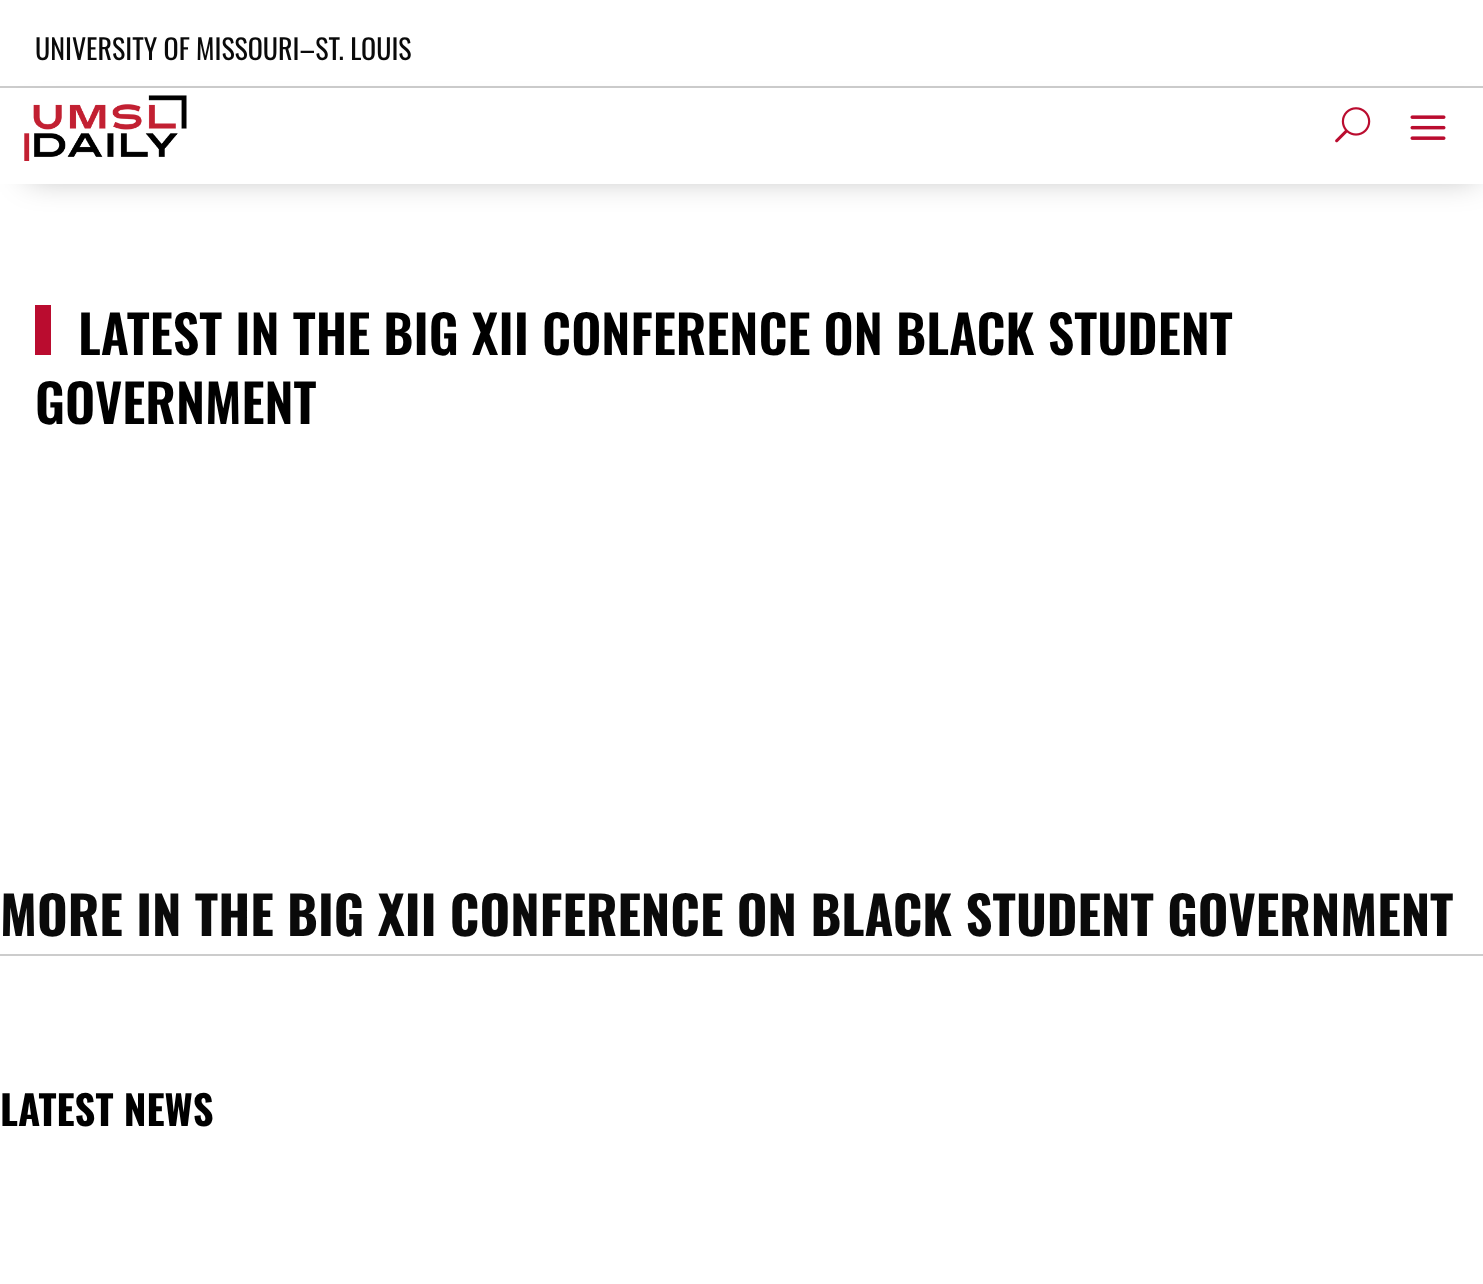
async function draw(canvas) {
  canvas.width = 1483;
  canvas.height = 1284;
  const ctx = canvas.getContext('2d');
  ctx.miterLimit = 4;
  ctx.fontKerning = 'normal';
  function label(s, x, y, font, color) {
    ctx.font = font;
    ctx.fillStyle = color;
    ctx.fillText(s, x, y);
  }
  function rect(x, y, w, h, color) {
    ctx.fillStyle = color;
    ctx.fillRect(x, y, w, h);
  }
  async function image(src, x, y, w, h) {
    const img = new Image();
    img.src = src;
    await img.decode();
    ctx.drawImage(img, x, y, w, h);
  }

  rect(0, 0, 1483, 1284, '#fff');
  rect(0, 86, 1483, 2, '#ccc');
  label('UNIVERSITY OF MISSOURI–ST. LOUIS', 35, 60, '28px Oswald', '#0a0a0a');
  ctx.fillStyle = '#0000004d';
  ctx.filter = 'blur(16px)';
  ctx.beginPath();
  ctx.rect(28, 116, 1449, 61);
  ctx.fill();
  ctx.filter = 'none';
  rect(0, 88, 1483, 96, '#fff');
  await image('assets/img1.png', 24, 95, 163, 66);
  await image('assets/img2.png', 1335, 107, 36, 36);
  await image('assets/img3.png', 1410, 115, 36, 25);
  rect(35, 305, 16, 50, '#ba0c2f');
  label('LATEST IN THE BIG XII CONFERENCE ON BLACK STUDENT', 78, 355, '600 52.5px Oswald', '#000');
  label('GOVERNMENT', 35, 424, '600 52.5px Oswald', '#000');
  label('MORE IN THE BIG XII CONFERENCE ON BLACK STUDENT GOVERNMENT', 0, 936, 'bold 52.5px Oswald', '#0a0a0a');
  rect(0, 954, 1483, 2, '#ccc');
  label('LATEST NEWS', 0, 1126, 'bold 40.5px Oswald', '#000');
}

draw(document.querySelector('canvas'));
